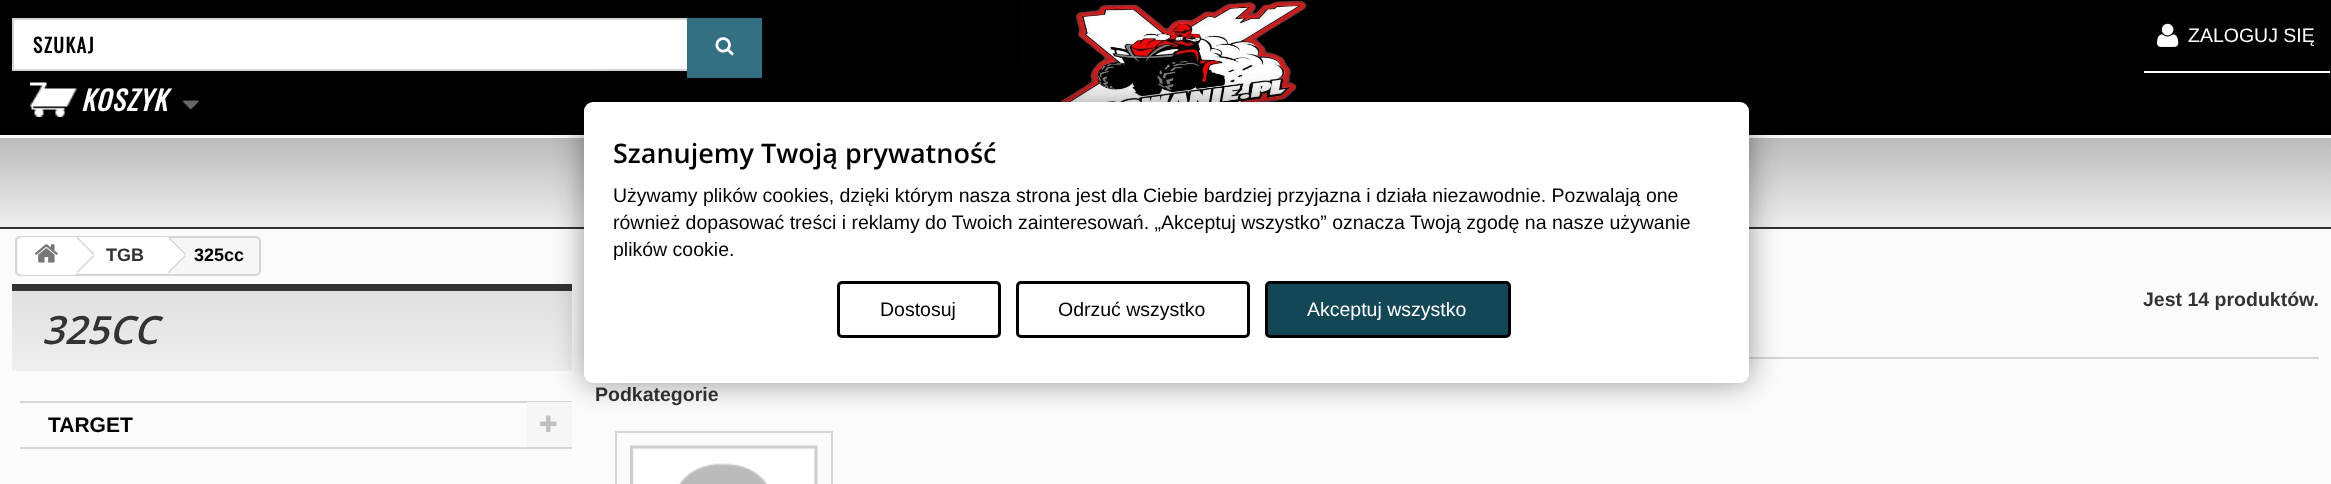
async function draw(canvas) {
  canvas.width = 2331;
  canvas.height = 484;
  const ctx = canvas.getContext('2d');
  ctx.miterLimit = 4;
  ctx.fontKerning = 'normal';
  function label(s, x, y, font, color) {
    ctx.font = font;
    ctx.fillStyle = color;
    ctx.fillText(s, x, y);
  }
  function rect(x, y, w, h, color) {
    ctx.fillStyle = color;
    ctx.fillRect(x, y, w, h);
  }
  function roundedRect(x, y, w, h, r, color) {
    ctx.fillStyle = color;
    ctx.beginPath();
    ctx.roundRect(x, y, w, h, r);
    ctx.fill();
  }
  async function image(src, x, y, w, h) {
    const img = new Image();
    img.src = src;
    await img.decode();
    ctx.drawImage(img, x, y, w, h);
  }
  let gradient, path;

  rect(0, 0, 2331, 484, '#fbfbfb');
  rect(0, 0, 2331, 135, '#000');
  rect(14, 20, 673, 49, '#fff');
  ctx.strokeStyle = '#d6d4d4';
  ctx.lineWidth = 2;
  ctx.strokeRect(13, 19, 748, 51);
  ctx.letterSpacing = '1.5px';
  label('SZUKAJ', 33, 53, 'bold 19.5px Oswald', '#000');
  rect(687, 18, 75, 60, '#327082');
  await image('assets/img1.png', 715, 37, 19, 19);
  await image('assets/img2.png', 30, 82, 47, 35);
  label('KOSZYK', 81, 111, 'italic bold 27px Oswald', '#fff');
  await image('assets/img3.png', 183, 100, 16, 10);
  await image('assets/img4.png', 1020, 0, 292, 102);
  rect(2144, 71, 186, 2, '#fff');
  await image('assets/img5.png', 2157, 23, 22, 24);
  ctx.letterSpacing = '0px';
  label('ZALOGUJ SIĘ', 2188, 42, '19.5px Liberation Sans', '#fff');
  gradient = ctx.createLinearGradient(1166, 138, 1166, 227);
  gradient.addColorStop(0, '#bbb');
  gradient.addColorStop(1, '#eee');
  ctx.fillStyle = gradient;
  ctx.fillRect(0, 138, 2331, 89);
  rect(0, 227, 2331, 2, '#333');
  ctx.fillStyle = '#f6f6f6';
  ctx.beginPath();
  ctx.roundRect(16, 237, 244, 38, 4);
  ctx.fill();
  ctx.stroke();
  ctx.fillStyle = '#fff';
  ctx.beginPath();
  ctx.roundRect(18, 237, 57, 38, [5, 0, 0, 5]);
  ctx.fill();
  await image('assets/img6.png', 34, 244, 24, 19);
  rect(75, 237, 92, 36, '#fff');
  ctx.fillStyle = '#d6d4d4';
  path = new Path2D('M77.5 237L94.5 254L93.5 255L76.5 238ZM93.5 255L94.5 256L77.5 273L76.5 272Z');
  ctx.fill(path);
  label('TGB', 106, 261, 'bold 18px Liberation Sans', '#333');
  ctx.fillStyle = '#fff';
  path = new Path2D('M170 238L185 253C186 254 186 256 185 257L170 272C169 273 167 273 166 272L151 257C150 256 150 254 151 253L166 238C167 237 169 237 170 238Z');
  ctx.fill(path);
  ctx.fillStyle = '#d6d4d4';
  path = new Path2D('M169 237L186 254L185 255L168 238ZM185 255L186 256L169 273L168 272Z');
  ctx.fill(path);
  label('325cc', 194, 261, 'bold 18px Liberation Sans', '#000');
  gradient = ctx.createLinearGradient(292, 291, 292, 371);
  gradient.addColorStop(0, '#e0e0e0');
  gradient.addColorStop(1, '#efefef');
  ctx.fillStyle = gradient;
  ctx.fillRect(12, 291, 560, 80);
  rect(12, 284, 560, 7, '#333');
  label('325CC', 42, 344, 'italic 600 39px Open Sans', '#333');
  rect(20, 401, 552, 2, '#d6d4d4');
  rect(20, 447, 552, 2, '#d6d4d4');
  label('TARGET', 48, 432, 'bold 21px Liberation Sans', '#000');
  rect(527, 402, 45, 45, '#f6f6f6');
  await image('assets/img7.png', 540, 415, 17, 17);
  label('Jest 14 produktów.', 2143, 306, 'bold 19.5px Liberation Sans', '#333');
  rect(1749, 357, 570, 2, '#d6d4d4');
  label('Podkategorie', 595, 401, 'bold 19.5px Liberation Sans', '#333');
  ctx.strokeRect(616, 432, 216, 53);
  await image('assets/img8.png', 630, 445, 188, 39);
  ctx.fillStyle = '#00000066';
  ctx.filter = 'blur(15px)';
  ctx.beginPath();
  ctx.roundRect(584, 102, 1165, 281, 9);
  ctx.fill();
  ctx.filter = 'none';
  roundedRect(584, 102, 1165, 281, 9, '#fff');
  label('Szanujemy Twoją prywatność', 613, 163, '600 27px Open Sans', '#000');
  label('Używamy plików cookies, dzięki którym nasza strona jest dla Ciebie bardziej przyjazna i działa niezawodnie. Pozwalają one', 613, 202, '19.5px Liberation Sans', '#000');
  label('również dopasować treści i reklamy do Twoich zainteresowań. „Akceptuj wszystko” oznacza Twoją zgodę na nasze używanie', 613, 229, '19.5px Liberation Sans', '#000');
  label('plików cookie.', 613, 256, '19.5px Liberation Sans', '#000');
  ctx.beginPath();
  ctx.roundRect(838.5, 282.5, 161, 54, 3.5);
  ctx.strokeStyle = '#000';
  ctx.lineWidth = 3;
  ctx.stroke();
  label('Dostosuj', 880, 316, '19.5px Liberation Sans', '#000');
  ctx.beginPath();
  ctx.roundRect(1017.5, 282.5, 231, 54, 3.5);
  ctx.stroke();
  label('Odrzuć wszystko', 1058, 316, '19.5px Liberation Sans', '#000');
  ctx.fillStyle = '#144756';
  ctx.beginPath();
  ctx.roundRect(1266.5, 282.5, 243, 54, 3.5);
  ctx.fill();
  ctx.stroke();
  label('Akceptuj wszystko', 1307, 316, '19.5px Liberation Sans', '#fff');
}

draw(document.querySelector('canvas'));
